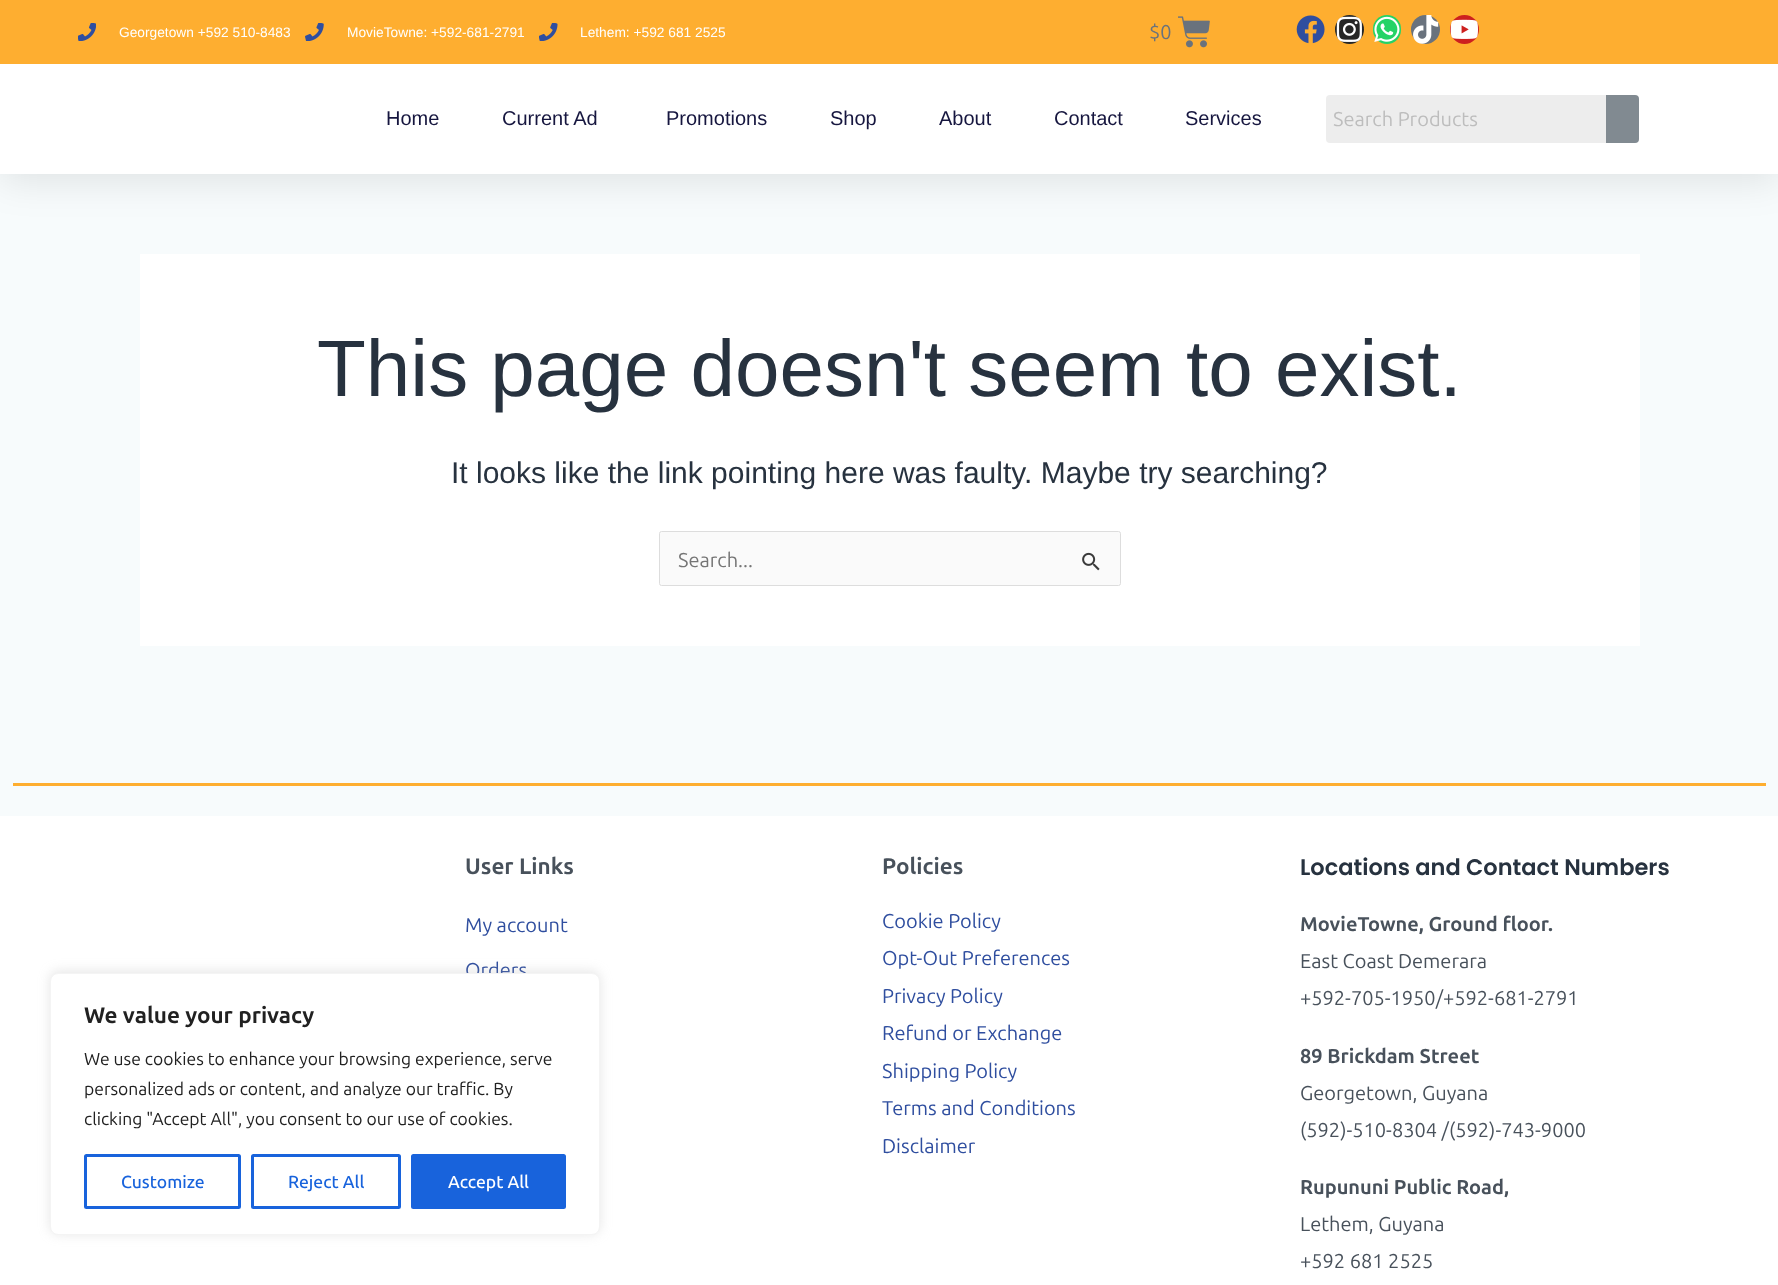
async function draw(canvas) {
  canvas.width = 1778;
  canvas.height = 1285;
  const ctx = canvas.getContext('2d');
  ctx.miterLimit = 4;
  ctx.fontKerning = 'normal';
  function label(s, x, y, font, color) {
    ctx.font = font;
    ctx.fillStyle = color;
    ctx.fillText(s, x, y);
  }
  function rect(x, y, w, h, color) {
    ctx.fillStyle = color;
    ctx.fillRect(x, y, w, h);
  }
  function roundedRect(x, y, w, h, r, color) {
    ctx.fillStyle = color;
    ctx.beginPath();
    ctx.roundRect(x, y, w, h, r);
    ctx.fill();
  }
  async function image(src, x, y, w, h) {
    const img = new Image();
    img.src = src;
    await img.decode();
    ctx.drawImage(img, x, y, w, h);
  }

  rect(0, 0, 1778, 1285, '#f7fbfc');
  ctx.fillStyle = '#0000001a';
  ctx.filter = 'blur(19px)';
  ctx.beginPath();
  ctx.rect(0, 6, 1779, 174);
  ctx.fill();
  ctx.filter = 'none';
  rect(0, 0, 1778, 64, '#feae30');
  await image('assets/img1.png', 78, 23, 18, 18);
  label('Georgetown +592 510-8483', 119, 37, '13.75px Liberation Sans', '#fff');
  await image('assets/img2.png', 305, 23, 19, 18);
  label('MovieTowne: +592-681-2791', 347, 37, '13.75px Liberation Sans', '#fff');
  await image('assets/img3.png', 539, 23, 19, 18);
  label('Lethem: +592 681 2525', 580, 37, '13.75px Liberation Sans', '#fff');
  label('$0', 1149, 39, '20px Ubuntu', '#69727d');
  await image('assets/img4.png', 1178, 16, 32, 32);
  await image('assets/img5.png', 1296, 15, 29, 29);
  ctx.fillStyle = '#262626';
  ctx.beginPath();
  ctx.arc(1349.5, 29.5, 14.5, 0, 2 * Math.PI);
  ctx.fill();
  await image('assets/img6.png', 1336, 16, 26, 26);
  roundedRect(1373, 15, 28, 29, 14, '#25d366');
  await image('assets/img7.png', 1374, 16, 26, 26);
  ctx.fillStyle = '#69727d';
  ctx.beginPath();
  ctx.arc(1425.5, 29.5, 14.5, 0, 2 * Math.PI);
  ctx.fill();
  await image('assets/img8.png', 1413, 15, 26, 29);
  ctx.fillStyle = '#cd201f';
  ctx.beginPath();
  ctx.arc(1464.5, 29.5, 14.5, 0, 2 * Math.PI);
  ctx.fill();
  await image('assets/img9.png', 1450, 19, 28, 20);
  rect(0, 64, 1778, 110, '#fff');
  label('Home', 386, 125, '20px Liberation Sans', '#16163f');
  label('Current Ad', 502, 125, '20px Liberation Sans', '#16163f');
  label('Promotions', 666, 125, '20px Liberation Sans', '#16163f');
  label('Shop', 830, 125, '20px Liberation Sans', '#16163f');
  label('About', 939, 125, '20px Liberation Sans', '#16163f');
  label('Contact', 1054, 125, '20px Liberation Sans', '#16163f');
  label('Services', 1185, 125, '20px Liberation Sans', '#16163f');
  ctx.fillStyle = '#ededed';
  ctx.beginPath();
  ctx.roundRect(1326, 95, 280, 48, [4, 0, 0, 4]);
  ctx.fill();
  label('Search Products', 1333, 126, '20px Ubuntu', '#bdbdbd');
  ctx.fillStyle = '#818a91';
  ctx.beginPath();
  ctx.roundRect(1606, 95, 33, 48, [0, 4, 4, 0]);
  ctx.fill();
  rect(140, 254, 1500, 392, '#fff');
  label('This page doesn\'t seem to exist.', 317, 396, '80px Liberation Sans', '#27323f');
  label('It looks like the link pointing here was faulty. Maybe try searching?', 451, 483, '30px Liberation Sans', '#27323f');
  ctx.fillStyle = '#fafafa';
  ctx.beginPath();
  ctx.roundRect(659.5, 531.5, 461, 54, 2);
  ctx.fill();
  ctx.strokeStyle = '#ddd';
  ctx.stroke();
  label('Search...', 678, 567, '20px Ubuntu', '#757575');
  await image('assets/img10.png', 1082, 552, 18, 19);
  rect(13, 783, 1753, 3, '#feae30');
  rect(0, 816, 1778, 469, '#fff');
  label('User Links', 465, 874, 'bold 22.5px Ubuntu', '#48515b');
  label('My account', 465, 932, '20px Ubuntu', '#2f4e9f');
  label('Orders', 465, 977, '20px Ubuntu', '#2f4e9f');
  label('Policies', 882, 874, 'bold 22.5px Ubuntu', '#48515b');
  label('Cookie Policy', 882, 928, '20px Ubuntu', '#2f4e9f');
  label('Opt-Out Preferences', 882, 965, '20px Ubuntu', '#2f4e9f');
  label('Privacy Policy', 882, 1003, '20px Ubuntu', '#2f4e9f');
  label('Refund or Exchange', 882, 1040, '20px Ubuntu', '#2f4e9f');
  label('Shipping Policy', 882, 1078, '20px Ubuntu', '#2f4e9f');
  label('Terms and Conditions', 882, 1115, '20px Ubuntu', '#2f4e9f');
  label('Disclaimer', 882, 1153, '20px Ubuntu', '#2f4e9f');
  label('Locations and Contact Numbers', 1300, 875, '600 22.5px Poppins', '#27323f');
  label('MovieTowne, Ground floor.', 1300, 931, 'bold 20px Ubuntu', '#48515b');
  label('East Coast Demerara', 1300, 968, '20px Ubuntu', '#48515b');
  label('+592-705-1950/+592-681-2791', 1300, 1005, '20px Ubuntu', '#48515b');
  label('89 Brickdam Street', 1300, 1063, 'bold 20px Ubuntu', '#48515b');
  label('Georgetown, Guyana', 1300, 1100, '20px Ubuntu', '#48515b');
  label('(592)-510-8304 /(592)-743-9000', 1300, 1137, '20px Ubuntu', '#48515b');
  label('Rupununi Public Road,', 1300, 1194, 'bold 20px Ubuntu', '#48515b');
  label('Lethem, Guyana', 1300, 1231, '20px Ubuntu', '#48515b');
  label('+592 681 2525', 1300, 1268, '20px Ubuntu', '#48515b');
  ctx.fillStyle = '#acabab4d';
  ctx.filter = 'blur(6px)';
  ctx.beginPath();
  ctx.roundRect(50, 971, 550, 263, 8);
  ctx.fill();
  ctx.filter = 'none';
  ctx.fillStyle = '#fff';
  ctx.beginPath();
  ctx.roundRect(50.5, 973.5, 549, 261, 7.5);
  ctx.fill();
  ctx.strokeStyle = '#f4f4f4';
  ctx.stroke();
  label('We value your privacy', 84, 1023, 'bold 22.5px Ubuntu', '#212121');
  label('We use cookies to enhance your browsing experience, serve', 84, 1065, '17.5px Ubuntu', '#212121');
  label('personalized ads or content, and analyze our traffic. By', 84, 1095, '17.5px Ubuntu', '#212121');
  label('clicking "Accept All", you consent to our use of cookies.', 84, 1125, '17.5px Ubuntu', '#212121');
  ctx.beginPath();
  ctx.roundRect(85.5, 1155.5, 154, 52, 1);
  ctx.strokeStyle = '#1863dc';
  ctx.lineWidth = 3;
  ctx.stroke();
  label('Customize', 121, 1188, '500 17.5px Ubuntu', '#1863dc');
  ctx.beginPath();
  ctx.roundRect(252.5, 1155.5, 147, 52, 1);
  ctx.stroke();
  label('Reject All', 288, 1188, '500 17.5px Ubuntu', '#1863dc');
  ctx.beginPath();
  ctx.roundRect(412.5, 1155.5, 152, 52, 1);
  ctx.fill();
  ctx.stroke();
  label('Accept All', 448, 1188, '500 17.5px Ubuntu', '#fff');
}

draw(document.querySelector('canvas'));
